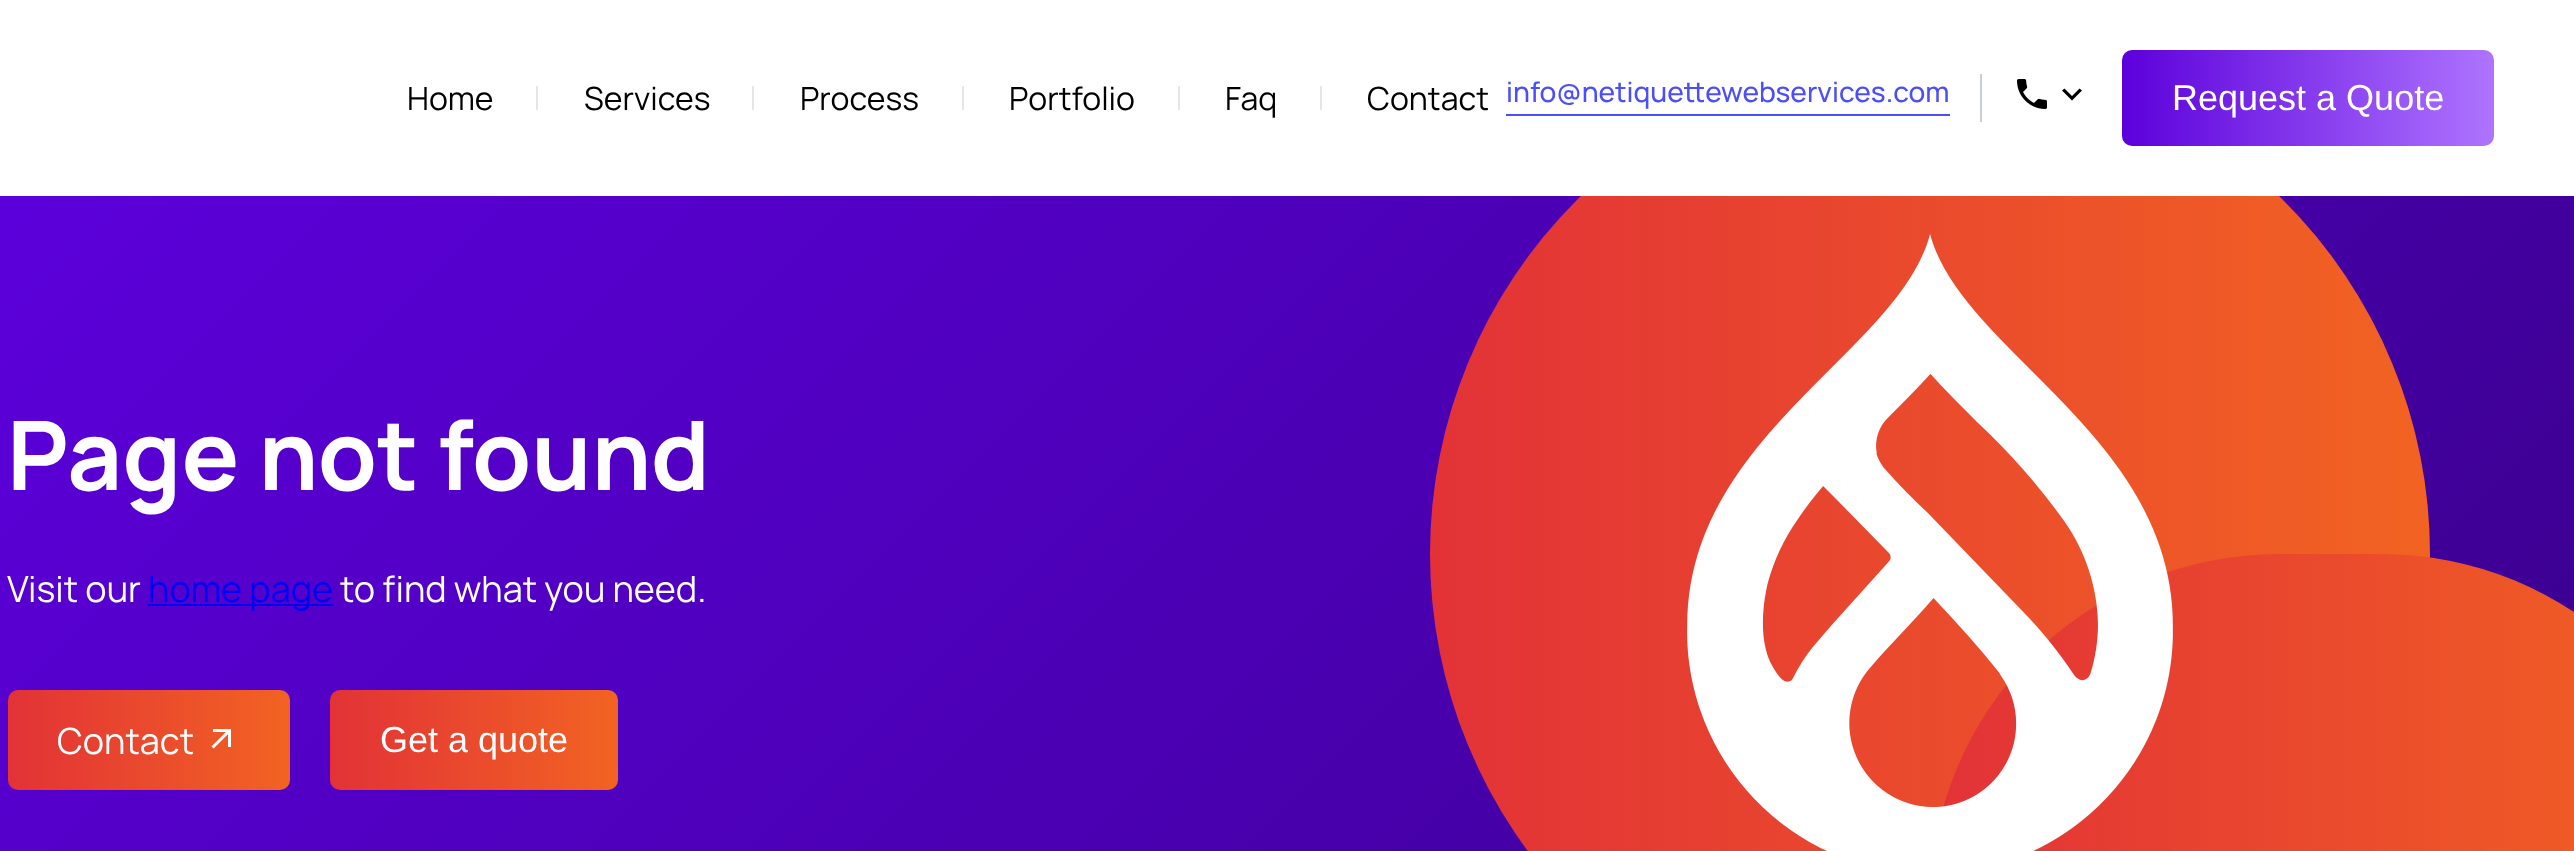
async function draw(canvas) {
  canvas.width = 2574;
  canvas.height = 851;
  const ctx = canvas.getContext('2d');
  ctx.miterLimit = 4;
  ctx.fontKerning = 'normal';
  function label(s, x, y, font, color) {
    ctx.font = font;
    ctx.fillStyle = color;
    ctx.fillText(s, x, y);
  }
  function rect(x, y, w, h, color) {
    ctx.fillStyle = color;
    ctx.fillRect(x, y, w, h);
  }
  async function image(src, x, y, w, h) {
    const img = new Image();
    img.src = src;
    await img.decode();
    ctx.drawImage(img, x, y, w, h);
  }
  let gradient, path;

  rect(0, 0, 2574, 851, '#fff');
  label('Home', 407, 110, '32px Manrope', '#000');
  rect(536, 86, 2, 24, '#e6e6e5');
  label('Services', 584, 110, '32px Manrope', '#000');
  rect(752, 86, 2, 24, '#e6e6e5');
  label('Process', 800, 110, '32px Manrope', '#000');
  rect(962, 86, 2, 24, '#e6e6e5');
  label('Portfolio', 1009, 110, '32px Manrope', '#000');
  rect(1178, 86, 2, 24, '#e6e6e5');
  label('Faq', 1225, 110, '32px Manrope', '#000');
  rect(1320, 86, 2, 24, '#e6e6e5');
  label('Contact', 1367, 110, '32px Manrope', '#000');
  label('info@netiquettewebservices.com', 1506, 102, '500 28px Manrope', '#4c4ff8');
  rect(1506, 114, 444, 2, '#4c4ff8');
  rect(1980, 74, 2, 48, '#c9cce2');
  await image('assets/img1.png', 2017, 79, 30, 30);
  ctx.fillStyle = '#000';
  path = new Path2D('M2064.5 88.5L2072 96L2079.5 88.5L2082 90.5L2072 100.5L2062 90.5Z');
  ctx.fill(path);
  gradient = ctx.createLinearGradient(2122, 98, 2494, 98);
  gradient.addColorStop(0, '#5c00db');
  gradient.addColorStop(1, '#ae74ff');
  ctx.fillStyle = gradient;
  ctx.beginPath();
  ctx.roundRect(2122, 50, 372, 96, 10);
  ctx.fill();
  label('Request a Quote', 2172, 110, '36px Liberation Sans', '#fff');
  gradient = ctx.createLinearGradient(464, -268, 2110, 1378);
  gradient.addColorStop(0, '#5c00db');
  gradient.addColorStop(1, '#3a008c');
  ctx.fillStyle = gradient;
  ctx.fillRect(0, 196, 2574, 655);
  label('Page not found', 7, 490, 'bold 96px Manrope', '#fff');
  label('Visit our', 7, 602, '36px Manrope', '#fff');
  rect(148, 604, 186, 2, '#00e');
  label('home page', 148, 602, '36px Manrope', '#00e');
  label('to find what you need.', 340, 602, '36px Manrope', '#fff');
  gradient = ctx.createLinearGradient(8, 740, 290, 740);
  gradient.addColorStop(0, '#e23237');
  gradient.addColorStop(1, '#f26322');
  ctx.fillStyle = gradient;
  ctx.beginPath();
  ctx.roundRect(8, 690, 282, 100, 10);
  ctx.fill();
  label('Contact', 57, 754, '36px Manrope', '#fff');
  await image('assets/img2.png', 211, 729, 20, 20);
  gradient = ctx.createLinearGradient(330, 740, 618, 740);
  gradient.addColorStop(0, '#e23237');
  gradient.addColorStop(1, '#f26322');
  ctx.fillStyle = gradient;
  ctx.beginPath();
  ctx.roundRect(330, 690, 288, 100, 10);
  ctx.fill();
  label('Get a quote', 380, 752, '36px Liberation Sans', '#fff');
  ctx.save();
  ctx.beginPath();
  ctx.rect(0, 196, 2574, 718);
  ctx.clip();
  gradient = ctx.createLinearGradient(1430, 554, 2430, 554);
  gradient.addColorStop(0, '#e23237');
  gradient.addColorStop(1, '#f26322');
  ctx.fillStyle = gradient;
  ctx.beginPath();
  ctx.arc(1930, 554, 500, 0, 2 * Math.PI);
  ctx.fill();
  ctx.restore();
  gradient = ctx.createLinearGradient(1930, 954, 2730, 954);
  gradient.addColorStop(0, '#e23237');
  gradient.addColorStop(1, '#f26322');
  ctx.fillStyle = gradient;
  ctx.beginPath();
  ctx.roundRect(1930, 554, 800, 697, 400);
  ctx.fill();
  await image('assets/img3.png', 1687, 234, 486, 617);
}

draw(document.querySelector('canvas'));
